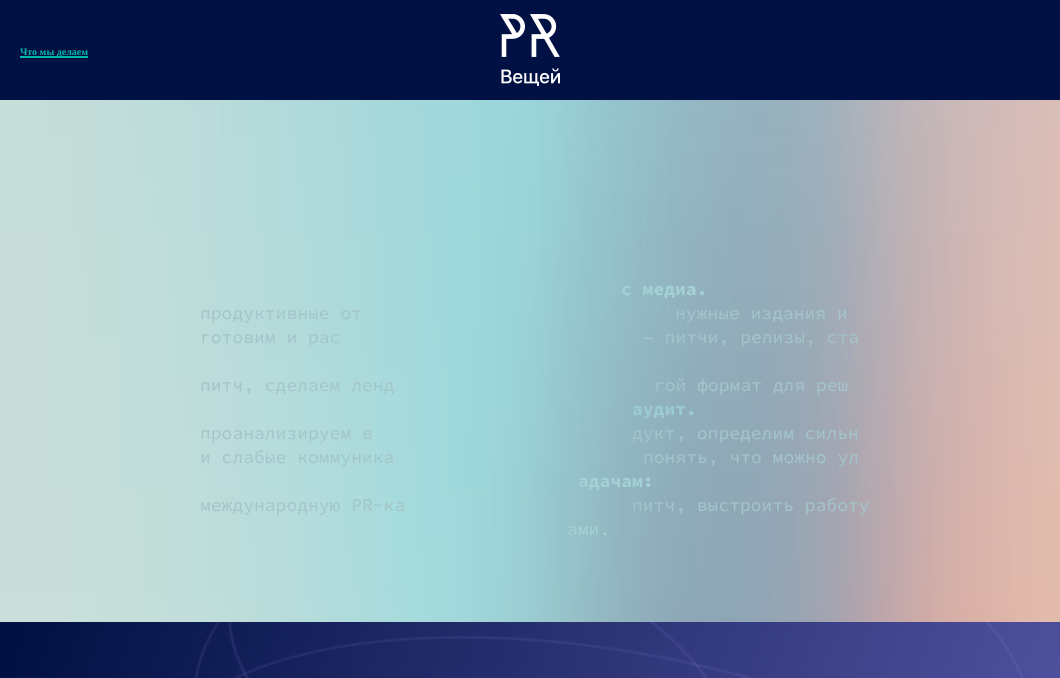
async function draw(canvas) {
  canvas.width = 1060;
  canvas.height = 678;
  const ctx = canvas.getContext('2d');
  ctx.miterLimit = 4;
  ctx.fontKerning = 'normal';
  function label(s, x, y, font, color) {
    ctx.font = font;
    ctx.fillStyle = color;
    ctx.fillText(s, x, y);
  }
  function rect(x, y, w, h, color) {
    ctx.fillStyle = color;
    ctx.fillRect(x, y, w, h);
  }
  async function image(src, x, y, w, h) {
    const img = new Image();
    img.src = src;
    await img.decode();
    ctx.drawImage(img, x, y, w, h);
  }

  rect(0, 0, 1060, 678, '#fff');
  rect(0, 0, 1060, 100, '#021144');
  label('Что мы делаем', 20, 55, 'bold 10px Liberation Serif', '#01b8a8');
  rect(20, 56, 68, 2, '#01b8a8');
  await image('assets/img1.png', 500, 14, 60, 72);
  await image('assets/img2.png', 0, 100, 1060, 522);
  label('с медиа.', 621, 295, 'bold 18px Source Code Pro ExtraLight', '#a3d1d4');
  label('продуктивные от', 200, 319, '18px Source Code Pro ExtraLight', '#a3c5cb');
  label('нужные издания и', 675, 319, '18px Source Code Pro ExtraLight', '#a3c5cb');
  label('готовим и рас', 200, 343, '18px Source Code Pro ExtraLight', '#a3c5cb');
  label('— питчи, релизы, ста', 643, 343, '18px Source Code Pro ExtraLight', '#a3c5cb');
  label('питч, сделаем ленд', 200, 391, '18px Source Code Pro ExtraLight', '#a3c5cb');
  label('гой формат для реш', 654, 391, '18px Source Code Pro ExtraLight', '#a3c5cb');
  label('аудит.', 632, 415, 'bold 18px Source Code Pro ExtraLight', '#9bcbd1');
  label('проанализируем в', 200, 439, '18px Source Code Pro ExtraLight', '#a3c5cb');
  label('дукт, определим сильн', 632, 439, '18px Source Code Pro ExtraLight', '#a3c5cb');
  label('и слабые коммуника', 200, 463, '18px Source Code Pro ExtraLight', '#a3c5cb');
  label('понять, что можно ул', 643, 463, '18px Source Code Pro ExtraLight', '#a3c5cb');
  label('адачам:', 578, 487, 'bold 18px Source Code Pro ExtraLight', '#a3d1d4');
  label('международную PR-ка', 200, 511, '18px Source Code Pro ExtraLight', '#a3c5cb');
  label('питч, выстроить работу', 632, 511, '18px Source Code Pro ExtraLight', '#a3c5cb');
  label('ами.', 567, 535, '18px Source Code Pro ExtraLight', '#a3d1d4');
  await image('assets/img3.png', 0, 622, 1060, 56);
}

draw(document.querySelector('canvas'));
